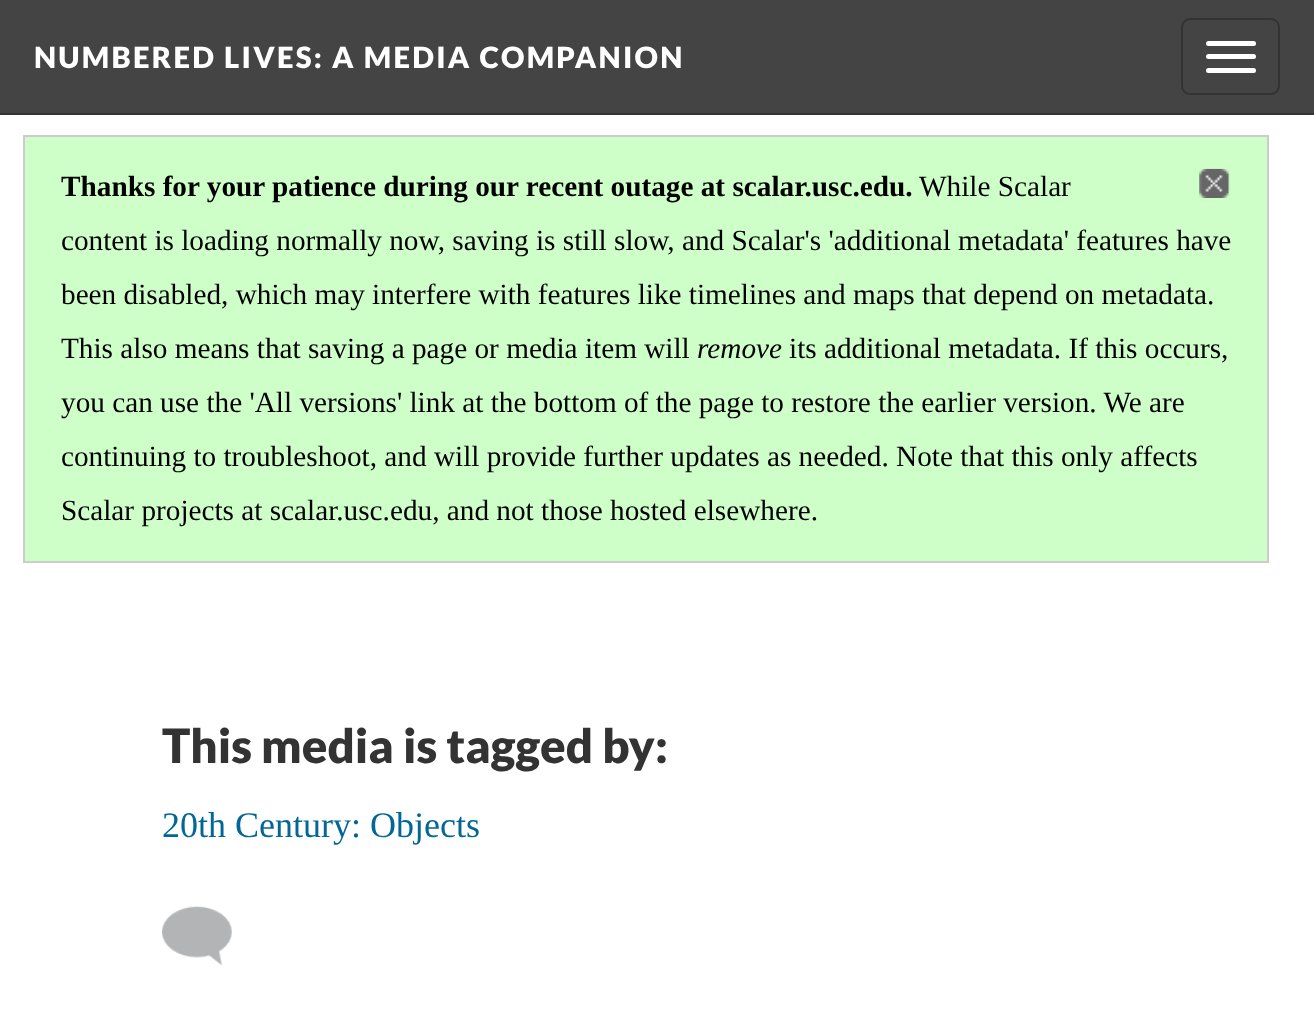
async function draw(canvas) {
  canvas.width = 1314;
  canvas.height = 1026;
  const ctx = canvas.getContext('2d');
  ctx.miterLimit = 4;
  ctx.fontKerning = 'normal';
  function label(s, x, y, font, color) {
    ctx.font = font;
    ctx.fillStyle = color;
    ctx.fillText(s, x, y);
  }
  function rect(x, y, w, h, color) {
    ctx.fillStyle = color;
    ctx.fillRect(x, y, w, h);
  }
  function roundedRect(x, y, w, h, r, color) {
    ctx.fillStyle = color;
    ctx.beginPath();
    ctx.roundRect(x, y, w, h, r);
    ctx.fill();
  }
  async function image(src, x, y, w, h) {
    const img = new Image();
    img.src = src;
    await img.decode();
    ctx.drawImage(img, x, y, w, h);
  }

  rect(0, 0, 1314, 1026, '#fff');
  rect(0, 0, 1314, 113, '#444');
  rect(0, 113, 1314, 2, '#333');
  ctx.letterSpacing = '2.25px';
  label('NUMBERED LIVES: A MEDIA COMPANION', 34, 68, '900 29.25px Lato', '#fff');
  ctx.beginPath();
  ctx.roundRect(1182, 19, 97, 75, 8);
  ctx.strokeStyle = '#333';
  ctx.lineWidth = 2;
  ctx.stroke();
  roundedRect(1206, 41, 50, 5, 2.5, '#fff');
  roundedRect(1206, 54, 50, 5, 2.5, '#fff');
  roundedRect(1206, 68, 50, 5, 2.5, '#fff');
  ctx.fillStyle = '#ceffc8';
  ctx.beginPath();
  ctx.rect(24, 136, 1244, 426);
  ctx.fill();
  ctx.strokeStyle = '#ccc';
  ctx.stroke();
  ctx.letterSpacing = '0px';
  label('Thanks for your patience during our recent outage at scalar.usc.edu.', 61, 196, 'bold 29.25px Liberation Serif', '#000');
  label('While Scalar', 919, 196, '29.25px Liberation Serif', '#000');
  await image('assets/img1.png', 1199, 168, 31, 30);
  label('content is loading normally now, saving is still slow, and Scalar\'s \'additional metadata\' features have', 61, 250, '29.25px Liberation Serif', '#000');
  label('been disabled, which may interfere with features like timelines and maps that depend on metadata.', 61, 304, '29.25px Liberation Serif', '#000');
  label('This also means that saving a page or media item will', 61, 358, '29.25px Liberation Serif', '#000');
  label('remove', 697, 358, 'italic 29.25px Liberation Serif', '#000');
  label('its additional metadata. If this occurs,', 789, 358, '29.25px Liberation Serif', '#000');
  label('you can use the \'All versions\' link at the bottom of the page to restore the earlier version. We are', 61, 412, '29.25px Liberation Serif', '#000');
  label('continuing to troubleshoot, and will provide further updates as needed. Note that this only affects', 61, 466, '29.25px Liberation Serif', '#000');
  label('Scalar projects at scalar.usc.edu, and not those hosted elsewhere.', 61, 520, '29.25px Liberation Serif', '#000');
  label('This media is tagged by:', 162, 763, '900 47.25px Lato', '#333');
  label('20th Century: Objects', 162, 837, '36px Liberation Serif', '#026697');
  await image('assets/img2.png', 162, 906, 70, 60);
}

draw(document.querySelector('canvas'));
